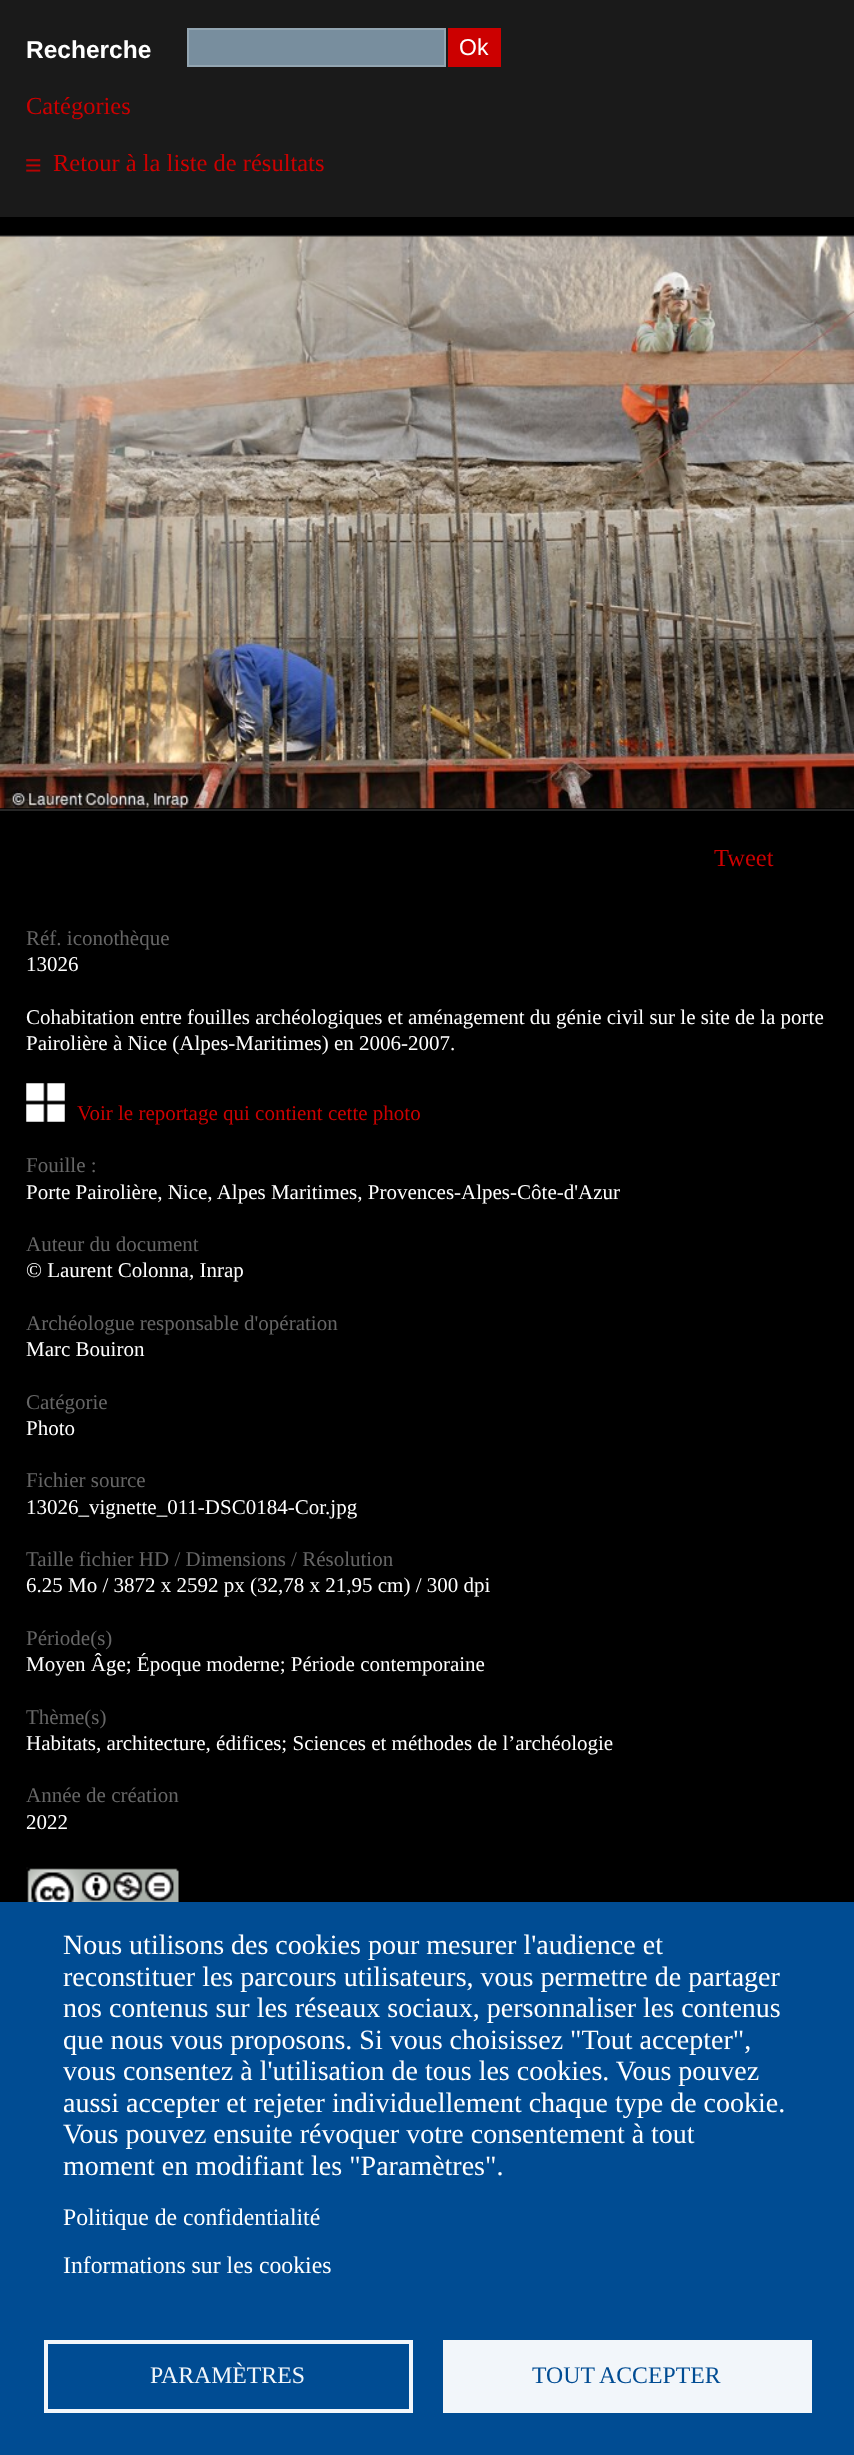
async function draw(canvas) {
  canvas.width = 854;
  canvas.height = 2455;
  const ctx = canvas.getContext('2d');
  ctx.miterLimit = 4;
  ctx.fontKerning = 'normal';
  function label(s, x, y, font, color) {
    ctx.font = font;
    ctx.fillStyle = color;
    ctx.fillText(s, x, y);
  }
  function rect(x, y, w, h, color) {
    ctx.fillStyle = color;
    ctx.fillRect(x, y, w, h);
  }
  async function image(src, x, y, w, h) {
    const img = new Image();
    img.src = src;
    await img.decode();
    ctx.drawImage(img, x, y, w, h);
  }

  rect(0, 0, 854, 2455, '#000');
  rect(0, 0, 854, 217, '#1a1a1a');
  label('Recherche', 26, 58, 'bold 24.5px Liberation Sans', '#fff');
  ctx.fillStyle = '#788e9e';
  ctx.beginPath();
  ctx.rect(188, 29, 257, 37);
  ctx.fill();
  ctx.strokeStyle = '#93a5b1';
  ctx.lineWidth = 2;
  ctx.stroke();
  rect(448, 28, 53, 39, '#c00');
  label('Ok', 459, 55, '23px Liberation Sans', '#fff');
  label('Catégories', 26, 114, '24.5px Liberation Serif', '#c00');
  await image('assets/img1.png', 26, 159, 15, 13);
  label('Retour à la liste de résultats', 53, 171, '24.5px Liberation Serif', '#c00');
  rect(0, 235, 854, 2, '#262626');
  rect(0, 809, 854, 2, '#262626');
  await image('assets/img2.png', 0, 236, 854, 573);
  label('Tweet', 714, 866, '24.5px Liberation Serif', '#c00');
  label('Réf. iconothèque', 26, 945, '21px Liberation Serif', '#666');
  label('13026', 26, 971, '21px Liberation Serif', '#fff');
  label('Cohabitation entre fouilles archéologiques et aménagement du génie civil sur le site de la porte', 26, 1024, '21px Liberation Serif', '#fff');
  label('Pairolière à Nice (Alpes-Maritimes) en 2006-2007.', 26, 1050, '21px Liberation Serif', '#fff');
  await image('assets/img3.png', 26, 1083, 39, 39);
  label('Voir le reportage qui contient cette photo', 77, 1120, '21px Liberation Serif', '#c00');
  label('Fouille :', 26, 1172, '21px Liberation Serif', '#666');
  label('Porte Pairolière, Nice, Alpes Maritimes, Provences-Alpes-Côte-d\'Azur', 26, 1199, '21px Liberation Serif', '#fff');
  label('Auteur du document', 26, 1251, '21px Liberation Serif', '#666');
  label('© Laurent Colonna, Inrap', 26, 1277, '21px Liberation Serif', '#fff');
  label('Archéologue responsable d\'opération', 26, 1330, '21px Liberation Serif', '#666');
  label('Marc Bouiron', 26, 1356, '21px Liberation Serif', '#fff');
  label('Catégorie', 26, 1409, '21px Liberation Serif', '#666');
  label('Photo', 26, 1435, '21px Liberation Serif', '#fff');
  label('Fichier source', 26, 1487, '21px Liberation Serif', '#666');
  label('13026_vignette_011-DSC0184-Cor.jpg', 26, 1514, '21px Liberation Serif', '#fff');
  label('Taille fichier HD / Dimensions / Résolution', 26, 1566, '21px Liberation Serif', '#666');
  label('6.25 Mo / 3872 x 2592 px (32,78 x 21,95 cm) / 300 dpi', 26, 1592, '21px Liberation Serif', '#fff');
  label('Période(s)', 26, 1645, '21px Liberation Serif', '#666');
  label('Moyen Âge; Époque moderne; Période contemporaine', 26, 1671, '21px Liberation Serif', '#fff');
  label('Thème(s)', 26, 1724, '21px Liberation Serif', '#666');
  label('Habitats, architecture, édifices; Sciences et méthodes de l’archéologie', 26, 1750, '21px Liberation Serif', '#fff');
  label('Année de création', 26, 1802, '21px Liberation Serif', '#666');
  label('2022', 26, 1829, '21px Liberation Serif', '#fff');
  await image('assets/img4.png', 26, 1867, 153, 35);
  rect(0, 1902, 854, 553, '#004c93');
  label('Nous utilisons des cookies pour mesurer l\'audience et', 63, 1954, '28px Liberation Serif', '#fff');
  label('reconstituer les parcours utilisateurs, vous permettre de partager', 63, 1986, '28px Liberation Serif', '#fff');
  label('nos contenus sur les réseaux sociaux, personnaliser les contenus', 63, 2017, '28px Liberation Serif', '#fff');
  label('que nous vous proposons. Si vous choisissez "Tout accepter",', 63, 2049, '28px Liberation Serif', '#fff');
  label('vous consentez à l\'utilisation de tous les cookies. Vous pouvez', 63, 2080, '28px Liberation Serif', '#fff');
  label('aussi accepter et rejeter individuellement chaque type de cookie.', 63, 2112, '28px Liberation Serif', '#fff');
  label('Vous pouvez ensuite révoquer votre consentement à tout', 63, 2143, '28px Liberation Serif', '#fff');
  label('moment en modifiant les "Paramètres".', 63, 2175, '28px Liberation Serif', '#fff');
  label('Politique de confidentialité', 63, 2225, '23.75px Liberation Serif', '#fff');
  label('Informations sur les cookies', 63, 2273, '23.75px Liberation Serif', '#fff');
  ctx.strokeStyle = '#f2f6fa';
  ctx.lineWidth = 4;
  ctx.strokeRect(46, 2342, 365, 69);
  label('PARAMÈTRES', 150, 2383, '23.75px Liberation Serif', '#f2f6fa');
  rect(443, 2340, 369, 73, '#f2f6fa');
  label('TOUT ACCEPTER', 532, 2383, '23.75px Liberation Serif', '#004c93');
}

draw(document.querySelector('canvas'));
